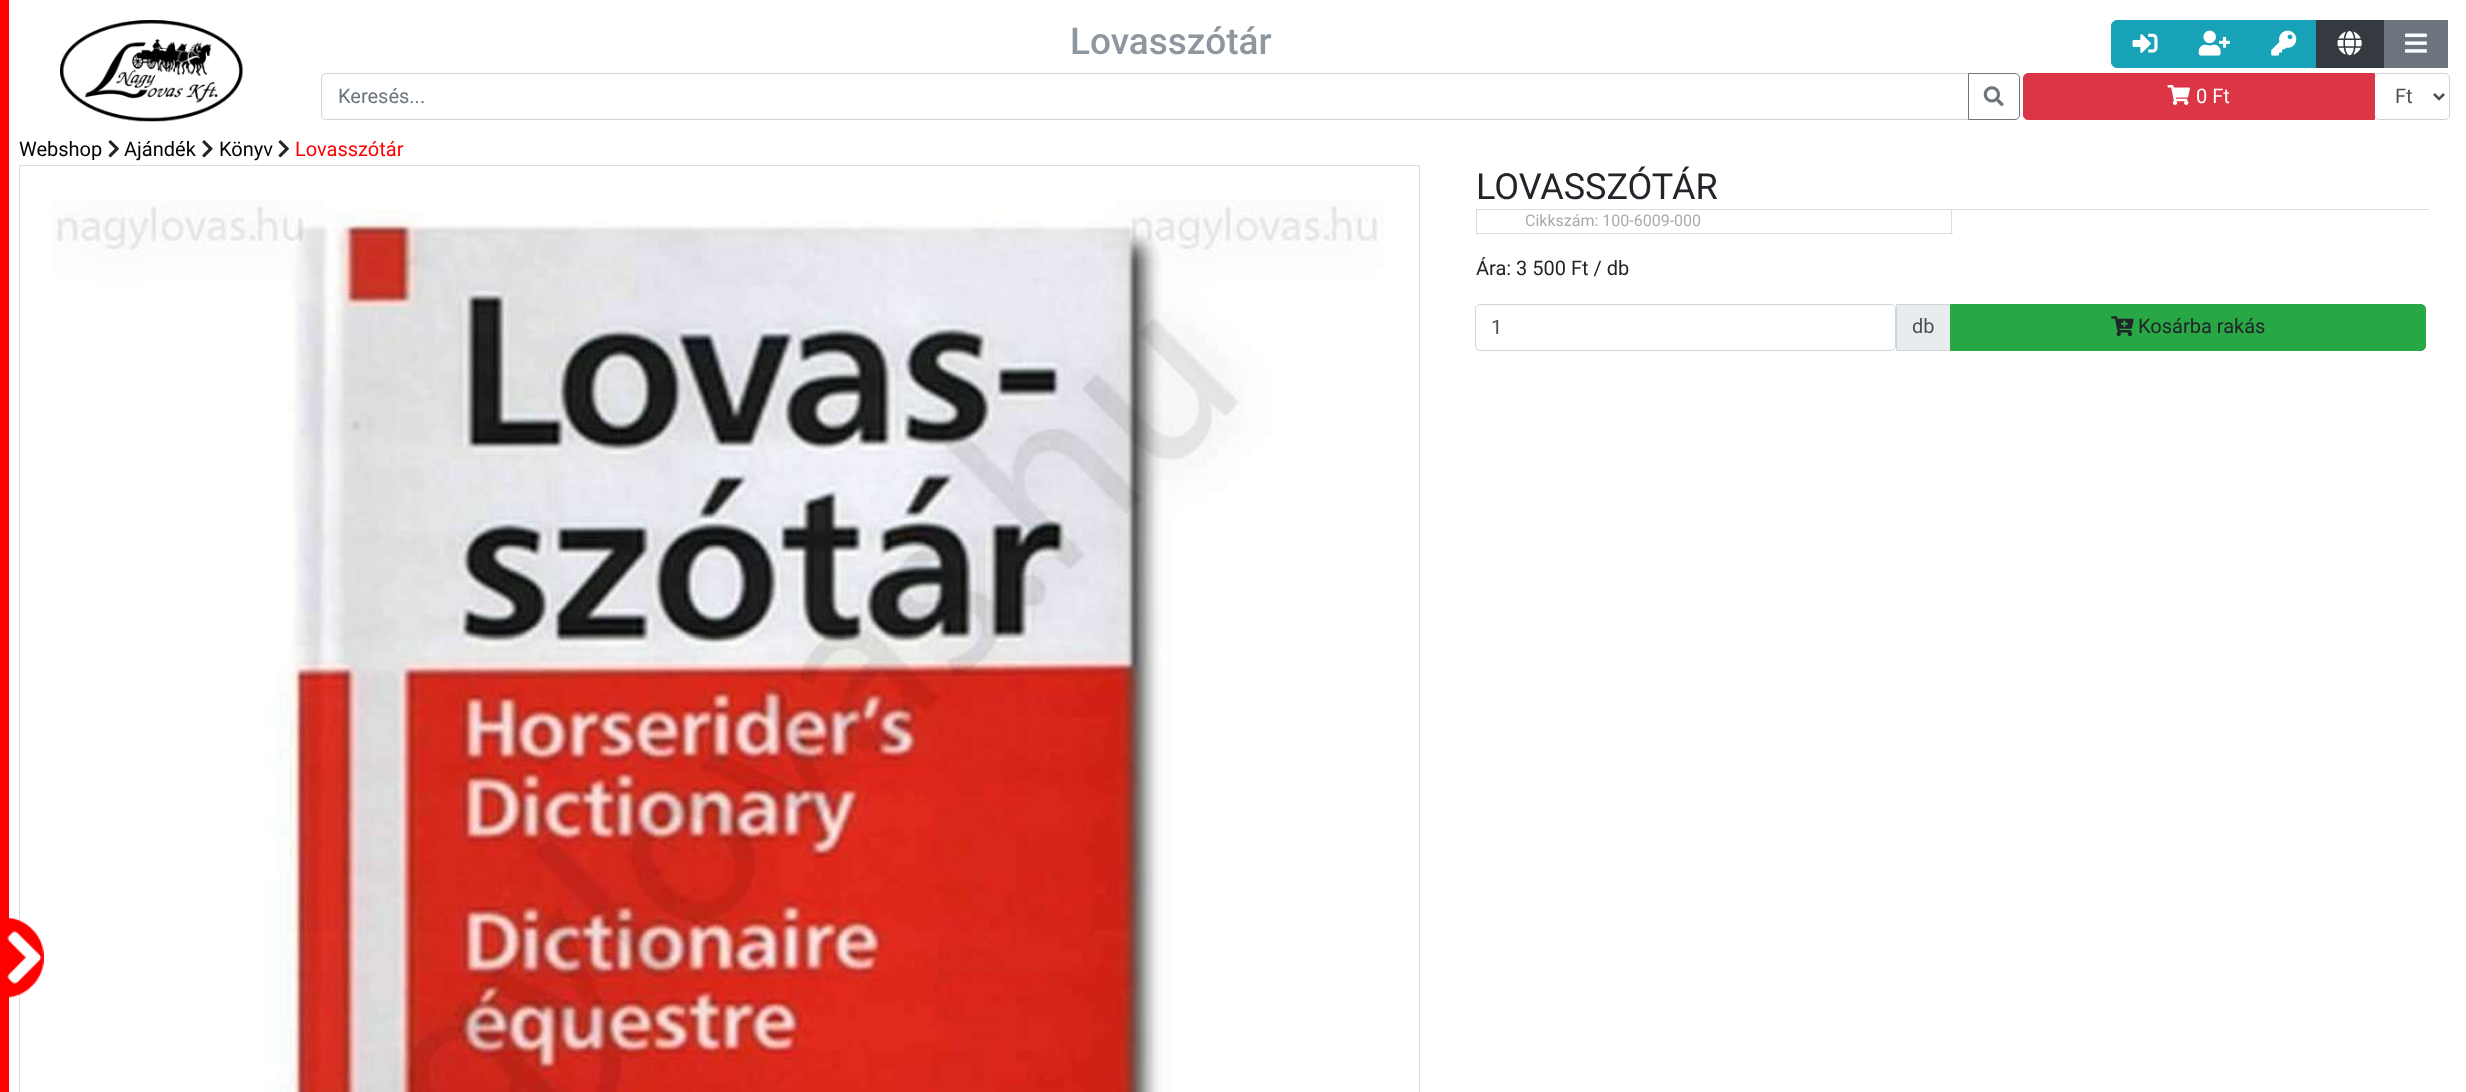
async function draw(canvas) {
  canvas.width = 2466;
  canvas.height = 1092;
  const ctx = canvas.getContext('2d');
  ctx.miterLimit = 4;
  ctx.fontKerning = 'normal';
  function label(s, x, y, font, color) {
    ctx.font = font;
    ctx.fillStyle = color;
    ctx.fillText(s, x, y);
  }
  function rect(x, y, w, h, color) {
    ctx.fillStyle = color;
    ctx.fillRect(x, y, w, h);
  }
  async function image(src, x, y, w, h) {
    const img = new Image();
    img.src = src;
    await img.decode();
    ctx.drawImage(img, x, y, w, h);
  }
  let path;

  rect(0, 0, 2466, 1092, '#fff');
  await image('assets/img1.png', 60, 20, 183, 102);
  label('Lovasszótár', 1070, 54, '500 37px Roboto', '#8e979f');
  ctx.beginPath();
  ctx.roundRect(321.5, 73.5, 1647, 46, [4.5, 0, 0, 4.5]);
  ctx.strokeStyle = '#ced4da';
  ctx.stroke();
  label('Keresés...', 338, 103, '20px Roboto', '#6c757d');
  ctx.fillStyle = '#fff';
  ctx.beginPath();
  ctx.roundRect(1968.5, 73.5, 51, 46, [0, 4.5, 4.5, 0]);
  ctx.fill();
  ctx.strokeStyle = '#6c757d';
  ctx.stroke();
  await image('assets/img2.png', 1983, 86, 21, 21);
  ctx.fillStyle = '#17a2b8';
  ctx.beginPath();
  ctx.roundRect(2111.5, 20.5, 67, 47, [5.5, 0, 0, 5.5]);
  ctx.fill();
  ctx.strokeStyle = '#17a2b8';
  ctx.stroke();
  await image('assets/img3.png', 2132, 33, 26, 20);
  rect(2179, 20, 137, 48, '#17a2b8');
  await image('assets/img4.png', 2198, 30, 32, 26);
  rect(2316, 20, 68, 48, '#343a40');
  await image('assets/img5.png', 2337, 31, 25, 25);
  rect(2384, 20, 64, 48, '#6c757d');
  await image('assets/img6.png', 2405, 33, 22, 20);
  await image('assets/img7.png', 2271, 30, 26, 26);
  ctx.beginPath();
  ctx.roundRect(2374.5, 73.5, 75, 46, 4.5);
  ctx.strokeStyle = '#ced4da';
  ctx.stroke();
  ctx.fillStyle = '#dc3545';
  ctx.beginPath();
  ctx.roundRect(2023.5, 73.5, 351, 46, [4.5, 0, 0, 4.5]);
  ctx.fill();
  ctx.strokeStyle = '#dc3545';
  ctx.stroke();
  await image('assets/img8.png', 2167, 85, 23, 20);
  label('0 Ft', 2196, 103, '20px Roboto', '#fff');
  path = new Path2D('M2434 94L2439 99L2444 94');
  ctx.strokeStyle = '#495057';
  ctx.lineWidth = 2.5;
  ctx.stroke(path);
  label('Ft', 2395, 103, '20px Roboto', '#495057');
  rect(0, 0, 9, 1092, '#f00');
  ctx.strokeStyle = '#ddd';
  ctx.lineWidth = 1;
  ctx.strokeRect(19.5, 165.5, 1400, 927);
  await image('assets/img9.png', 7, 918, 37, 80);
  label('Webshop', 19, 156, '20px Roboto', '#000');
  await image('assets/img10.png', 108, 140, 11, 18);
  label('Ajándék', 124, 156, '20px Roboto', '#000');
  await image('assets/img11.png', 202, 140, 11, 18);
  label('Könyv', 219, 156, '20px Roboto', '#000');
  await image('assets/img10.png', 278, 140, 11, 18);
  label('Lovasszótár', 295, 156, '20px Roboto', '#f00');
  await image('assets/img12.png', 53, 200, 1331, 892);
  rect(1476, 209, 953, 1, '#ddd');
  label('LOVASSZÓTÁR', 1476, 199, '36px Roboto', '#212529');
  rect(1951, 209, 1, 25, '#ddd');
  rect(1476, 233, 477, 1, '#ddd');
  rect(1476, 209, 1, 25, '#ddd');
  label('Cikkszám: 100-6009-000', 1525, 226, '16px Roboto', '#aaa');
  label('Ára: 3 500 Ft / db', 1476, 275, '20px Roboto', '#212529');
  ctx.beginPath();
  ctx.roundRect(1475.5, 304.5, 420, 46, 4.5);
  ctx.strokeStyle = '#ced4da';
  ctx.stroke();
  label('1', 1491, 334, '20px Roboto', '#495057');
  ctx.fillStyle = '#e9ecef';
  ctx.beginPath();
  ctx.rect(1896.5, 304.5, 54, 46);
  ctx.fill();
  ctx.stroke();
  label('db', 1912, 333, '20px Roboto', '#495057');
  ctx.fillStyle = '#28a745';
  ctx.beginPath();
  ctx.roundRect(1950.5, 304.5, 475, 46, [0, 4.5, 4.5, 0]);
  ctx.fill();
  ctx.strokeStyle = '#28a745';
  ctx.stroke();
  await image('assets/img13.png', 2111, 316, 23, 21);
  label('Kosárba rakás', 2138, 333, '20px Roboto', '#212529');
}

draw(document.querySelector('canvas'));
